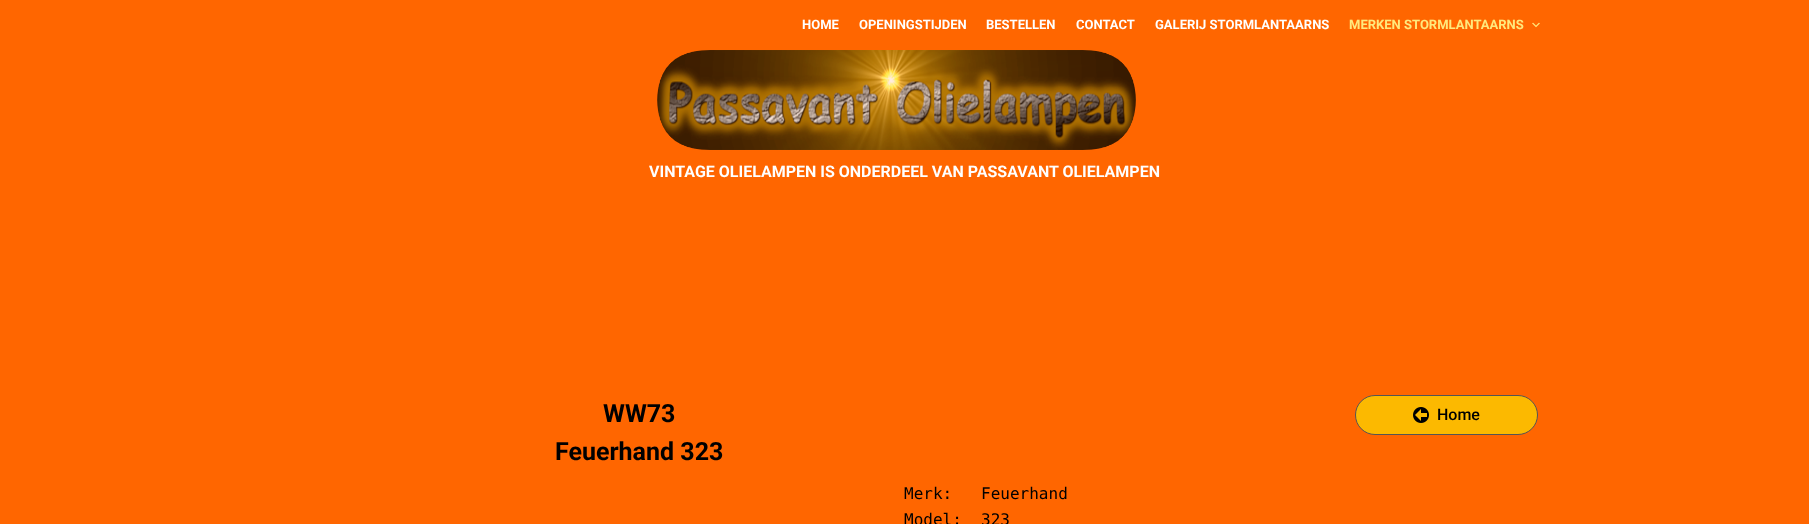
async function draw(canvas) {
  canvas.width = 1809;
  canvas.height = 524;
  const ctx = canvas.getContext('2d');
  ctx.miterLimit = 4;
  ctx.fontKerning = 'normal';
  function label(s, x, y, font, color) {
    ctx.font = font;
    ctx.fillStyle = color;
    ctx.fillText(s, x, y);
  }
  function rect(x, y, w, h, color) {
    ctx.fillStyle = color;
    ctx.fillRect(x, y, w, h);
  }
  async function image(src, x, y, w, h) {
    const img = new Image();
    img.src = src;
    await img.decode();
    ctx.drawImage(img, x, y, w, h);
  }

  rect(0, 0, 1809, 524, '#f60');
  label('HOME', 802, 29, 'bold 13px Roboto', '#fff');
  label('OPENINGSTIJDEN', 859, 29, 'bold 13px Roboto', '#fff');
  label('BESTELLEN', 986, 29, 'bold 13px Roboto', '#fff');
  label('CONTACT', 1076, 29, 'bold 13px Roboto', '#fff');
  label('GALERIJ STORMLANTAARNS', 1155, 29, 'bold 13px Roboto', '#fff');
  label('MERKEN STORMLANTAARNS', 1349, 29, 'bold 13px Roboto', '#ffe97d');
  await image('assets/img1.png', 1532, 22, 8, 6);
  await image('assets/img2.png', 657, 50, 479, 100);
  label('VINTAGE OLIELAMPEN IS ONDERDEEL VAN PASSAVANT OLIELAMPEN', 649, 177, 'bold 16px Roboto', '#fff');
  label('WW73', 603, 422, 'bold 25px Roboto', '#000');
  label('Feuerhand 323', 555, 460, 'bold 25px Roboto', '#000');
  ctx.fillStyle = '#fcb900';
  ctx.beginPath();
  ctx.roundRect(1355.5, 395.5, 182, 39, 19.5);
  ctx.fill();
  ctx.strokeStyle = '#555';
  ctx.stroke();
  await image('assets/img3.png', 1413, 407, 16, 16);
  label('Home', 1437, 420, '500 16px Roboto', '#000');
  label('Merk:   Feuerhand', 904, 499, '16px DejaVu Sans Mono', '#000');
  label('Model:  323', 904, 525, '16px DejaVu Sans Mono', '#000');
}

draw(document.querySelector('canvas'));
